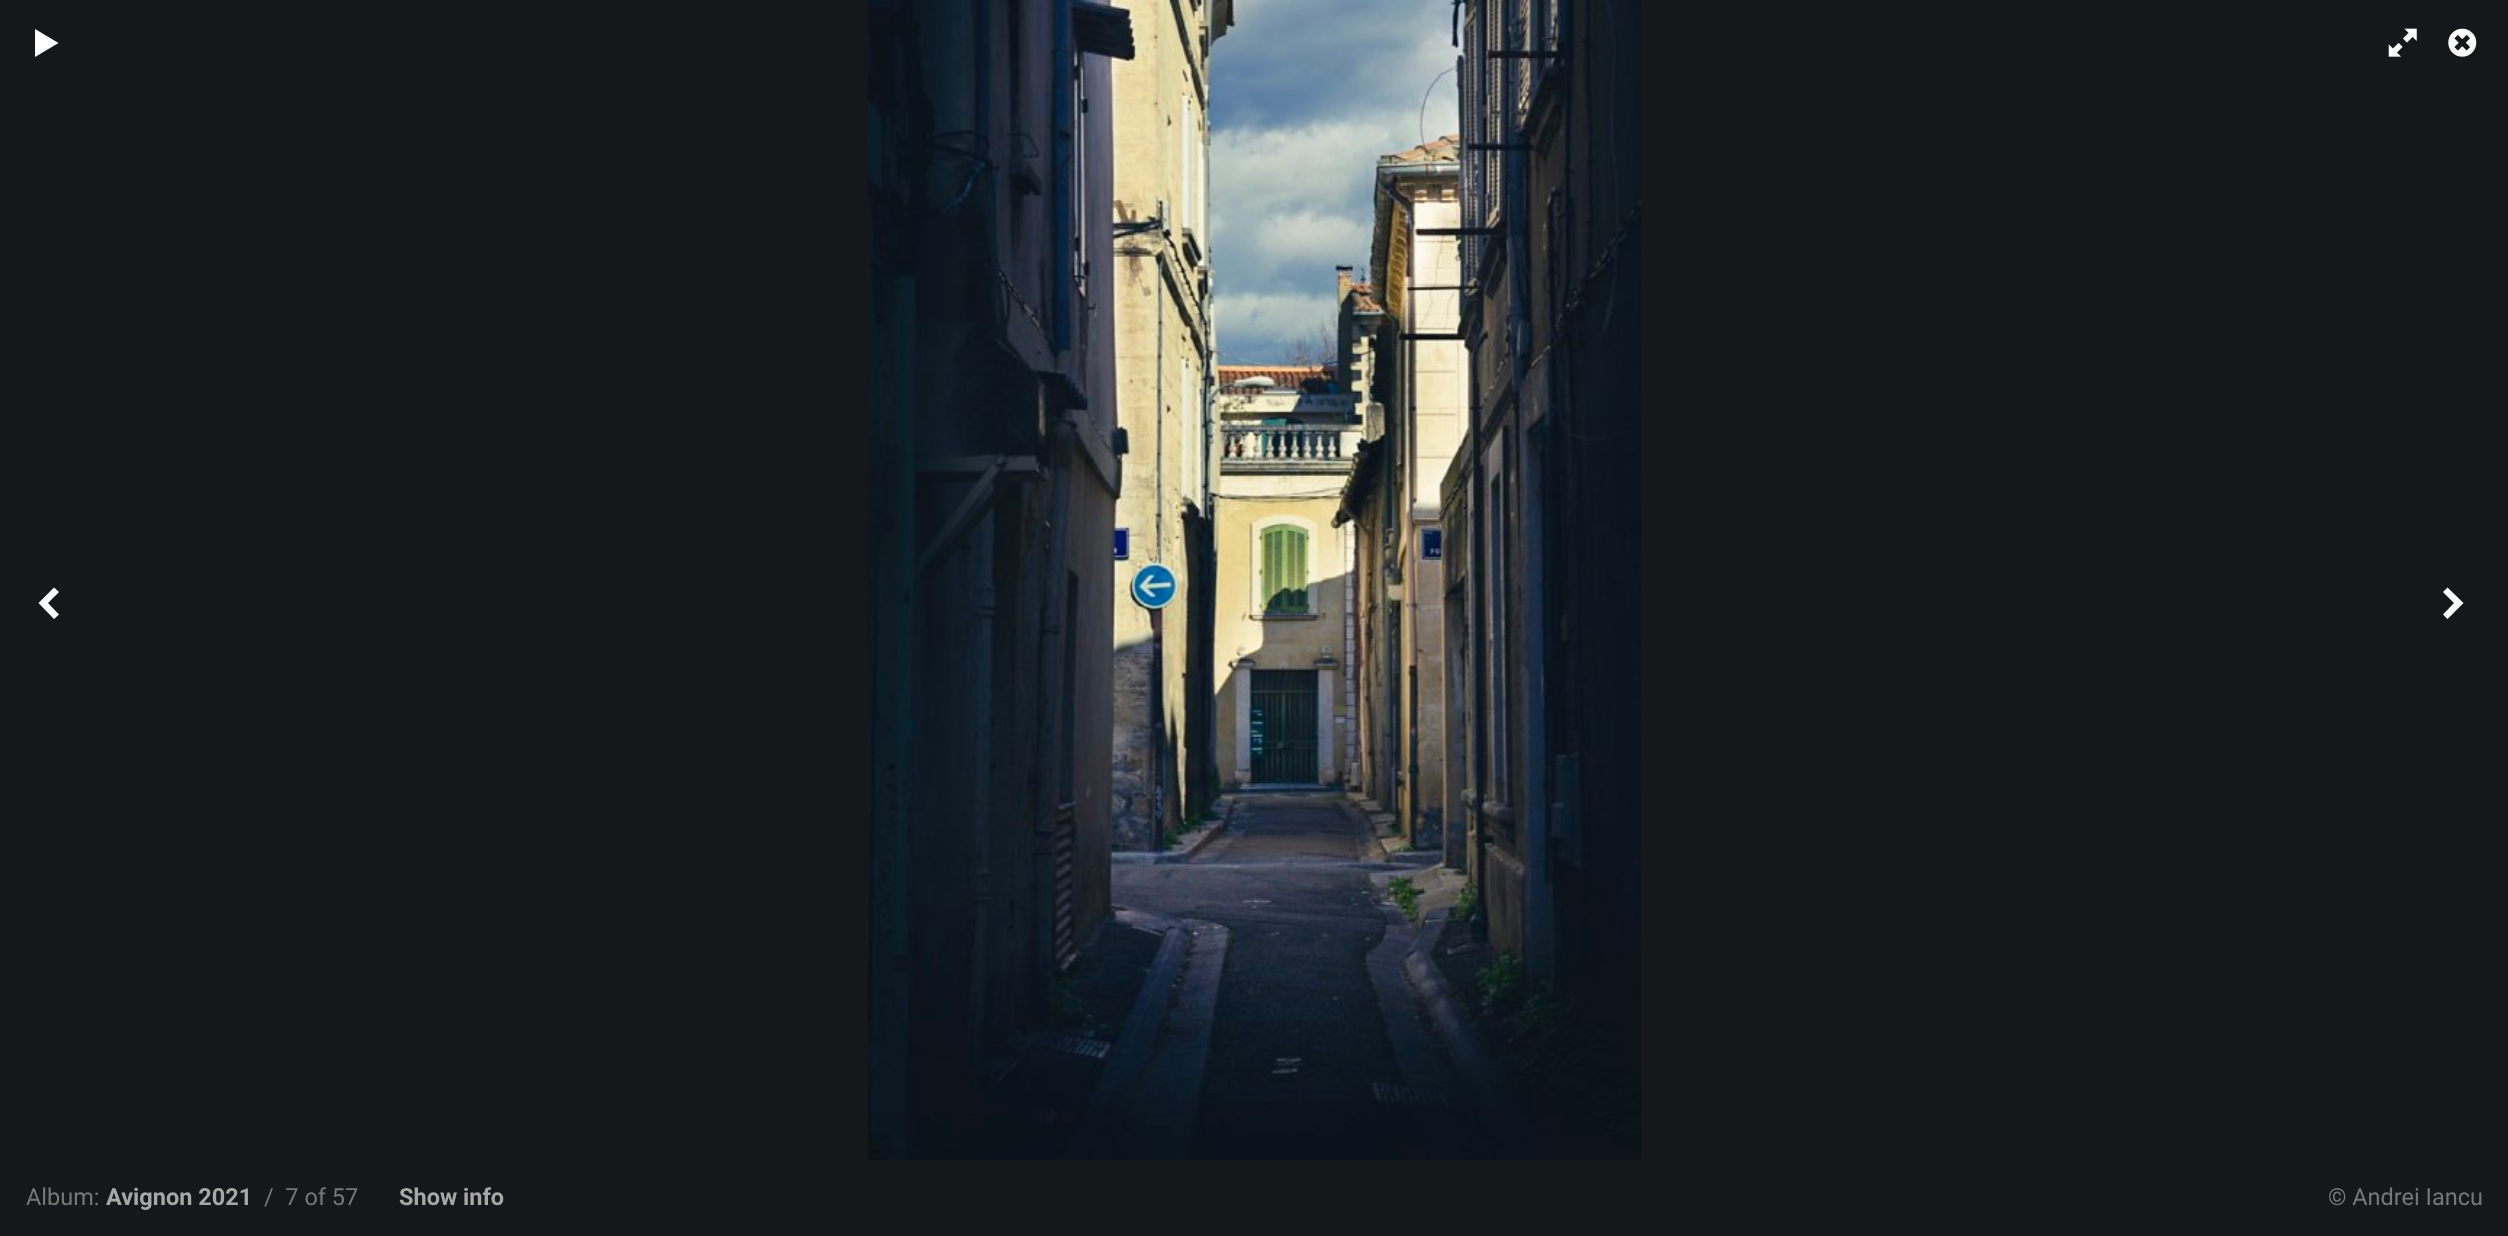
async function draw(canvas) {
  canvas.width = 2508;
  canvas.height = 1236;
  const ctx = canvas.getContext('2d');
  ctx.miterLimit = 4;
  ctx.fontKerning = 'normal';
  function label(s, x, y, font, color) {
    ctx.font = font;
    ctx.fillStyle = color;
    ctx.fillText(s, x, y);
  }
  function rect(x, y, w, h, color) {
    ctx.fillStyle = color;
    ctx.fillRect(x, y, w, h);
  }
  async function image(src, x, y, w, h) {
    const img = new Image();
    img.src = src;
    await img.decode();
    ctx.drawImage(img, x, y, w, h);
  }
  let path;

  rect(0, 0, 2508, 1236, '#16171a');
  ctx.fillStyle = '#fff';
  path = new Path2D('M35 57V29L58.5 43Z');
  ctx.fill(path);
  await image('assets/img1.png', 868, 0, 774, 1160);
  await image('assets/img2.png', 2388, 28, 29, 29);
  await image('assets/img3.png', 2448, 28, 29, 29);
  path = new Path2D('M38.5 603L54 587.5L59 592L48 603L59 614.5L54 619Z');
  ctx.fill(path);
  path = new Path2D('M2443 614.5L2454 603L2443 592L2447.5 587.5L2463.5 603L2447.5 619Z');
  ctx.fill(path);
  label('Album:', 26, 1205, '23.5px Roboto', '#777');
  label('Avignon 2021', 106, 1205, 'bold 23.5px Roboto', '#a7a7a7');
  label('/  7 of 57', 264, 1205, '23.5px Roboto', '#777');
  label('Show info', 399, 1205, 'bold 23.5px Roboto', '#a7a7a7');
  label('© Andrei Iancu', 2328, 1205, '23.5px Roboto', '#777');
}

draw(document.querySelector('canvas'));
